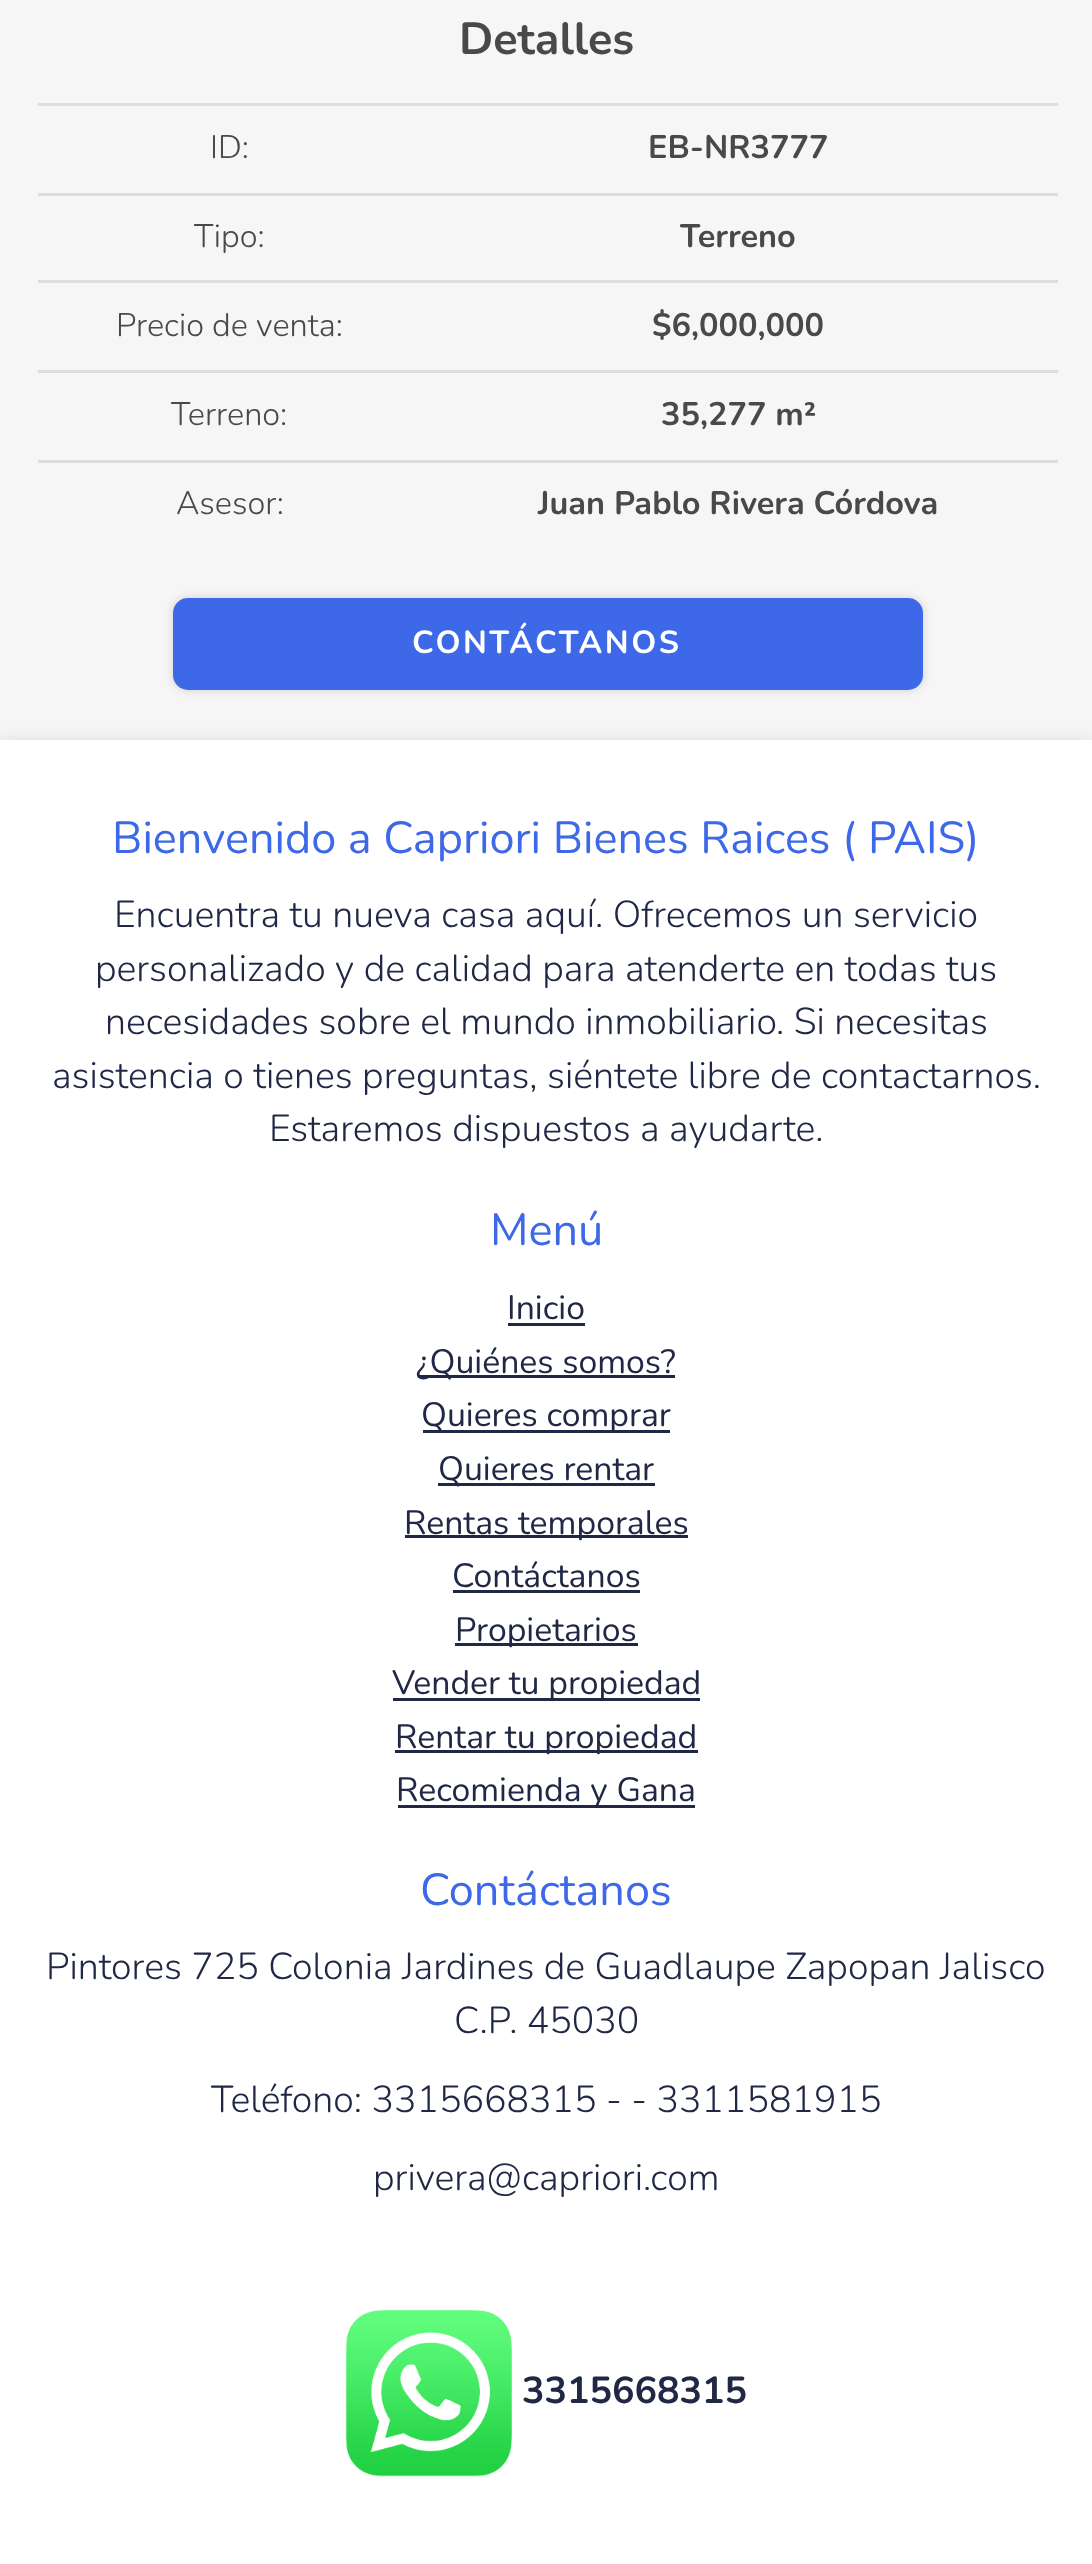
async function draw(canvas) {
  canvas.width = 1092;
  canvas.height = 2564;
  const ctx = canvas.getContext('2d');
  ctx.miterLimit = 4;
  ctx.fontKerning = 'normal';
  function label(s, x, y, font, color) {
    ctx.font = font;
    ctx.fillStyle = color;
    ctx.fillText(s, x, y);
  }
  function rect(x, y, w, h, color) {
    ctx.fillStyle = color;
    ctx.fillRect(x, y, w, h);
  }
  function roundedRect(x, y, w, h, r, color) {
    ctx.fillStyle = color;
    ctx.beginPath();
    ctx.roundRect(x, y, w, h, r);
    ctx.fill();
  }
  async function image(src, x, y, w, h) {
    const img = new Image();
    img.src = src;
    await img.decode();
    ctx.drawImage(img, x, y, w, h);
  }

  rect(0, 0, 1092, 2564, '#f6f6f6');
  label('Detalles', 459, 54, 'bold 45px Nunito', '#494949');
  label('ID:', 210, 158, '300 32.5px Nunito', '#494949');
  rect(38, 103, 1020, 3, '#ddd');
  label('EB-NR3777', 648, 158, 'bold 32.5px Nunito', '#494949');
  label('Tipo:', 194, 247, '300 32.5px Nunito', '#494949');
  rect(38, 193, 1020, 3, '#ddd');
  label('Terreno', 680, 247, 'bold 32.5px Nunito', '#494949');
  label('Precio de venta:', 116, 336, '300 32.5px Nunito', '#494949');
  rect(38, 280, 1020, 3, '#ddd');
  label('$6,000,000', 652, 336, 'bold 32.5px Nunito', '#494949');
  label('Terreno:', 171, 425, '300 32.5px Nunito', '#494949');
  rect(38, 370, 1020, 3, '#ddd');
  label('35,277 m²', 661, 425, 'bold 32.5px Nunito', '#494949');
  label('Asesor:', 176, 514, '300 32.5px Nunito', '#494949');
  rect(38, 460, 1020, 3, '#ddd');
  label('Juan Pablo Rivera Córdova', 538, 514, 'bold 32.5px Nunito', '#494949');
  ctx.fillStyle = '#00000026';
  ctx.filter = 'blur(5px)';
  ctx.beginPath();
  ctx.roundRect(173, 598, 750, 92, 15);
  ctx.fill();
  ctx.filter = 'none';
  roundedRect(173, 598, 750, 92, 15, '#3d68e8');
  ctx.letterSpacing = '2.5px';
  label('CONTÁCTANOS', 412, 653, 'bold 31.9px Nunito', '#fff');
  ctx.fillStyle = '#00000014';
  ctx.filter = 'blur(7.5px)';
  ctx.beginPath();
  ctx.rect(0, 738, 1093, 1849);
  ctx.fill();
  ctx.filter = 'none';
  rect(0, 740, 1092, 1824, '#fff');
  ctx.letterSpacing = '0px';
  label('Bienvenido a Capriori Bienes Raices ( PAIS)', 112, 853, '45px Nunito', '#3d68e8');
  label('Encuentra tu nueva casa aquí. Ofrecemos un servicio', 114, 927, '300 37.5px Nunito', '#212845');
  label('personalizado y de calidad para atenderte en todas tus', 95, 981, '300 37.5px Nunito', '#212845');
  label('necesidades sobre el mundo inmobiliario. Si necesitas', 105, 1034, '300 37.5px Nunito', '#212845');
  label('asistencia o tienes preguntas, siéntete libre de contactarnos.', 52, 1088, '300 37.5px Nunito', '#212845');
  label('Estaremos dispuestos a ayudarte.', 269, 1141, '300 37.5px Nunito', '#212845');
  label('Menú', 490, 1245, '45px Nunito', '#3d68e8');
  label('Inicio', 507, 1319, '33.75px Nunito', '#212845');
  rect(508, 1323, 77, 3, '#212845');
  rect(418, 1375, 257, 3, '#212845');
  label('¿Quiénes somos?', 416, 1373, '33.75px Nunito', '#212845');
  rect(423, 1430, 247, 3, '#212845');
  label('Quieres comprar', 421, 1426, '33.75px Nunito', '#212845');
  rect(438, 1483, 217, 3, '#212845');
  label('Quieres rentar', 438, 1480, '33.75px Nunito', '#212845');
  rect(405, 1535, 283, 3, '#212845');
  label('Rentas temporales', 404, 1534, '33.75px Nunito', '#212845');
  label('Contáctanos', 452, 1587, '33.75px Nunito', '#212845');
  rect(453, 1590, 187, 3, '#212845');
  rect(455, 1643, 183, 3, '#212845');
  label('Propietarios', 455, 1641, '33.75px Nunito', '#212845');
  rect(393, 1698, 307, 3, '#212845');
  label('Vender tu propiedad', 392, 1694, '33.75px Nunito', '#212845');
  rect(395, 1750, 303, 3, '#212845');
  label('Rentar tu propiedad', 395, 1748, '33.75px Nunito', '#212845');
  rect(398, 1805, 297, 3, '#212845');
  label('Recomienda y Gana', 396, 1801, '33.75px Nunito', '#212845');
  label('Contáctanos', 420, 1905, '45px Nunito', '#3d68e8');
  label('Pintores 725 Colonia Jardines de Guadlaupe Zapopan Jalisco', 46, 1979, '300 37.5px Nunito', '#212845');
  label('C.P. 45030', 454, 2033, '300 37.5px Nunito', '#212845');
  label('Teléfono: 3315668315 - - 3311581915', 211, 2112, '300 37.5px Nunito', '#212845');
  label('privera@capriori.com', 373, 2190, '300 37.5px Nunito', '#212845');
  await image('assets/img1.png', 345, 2309, 167, 168);
  label('3315668315', 522, 2403, 'bold 37.5px Nunito', '#212845');
}

draw(document.querySelector('canvas'));
